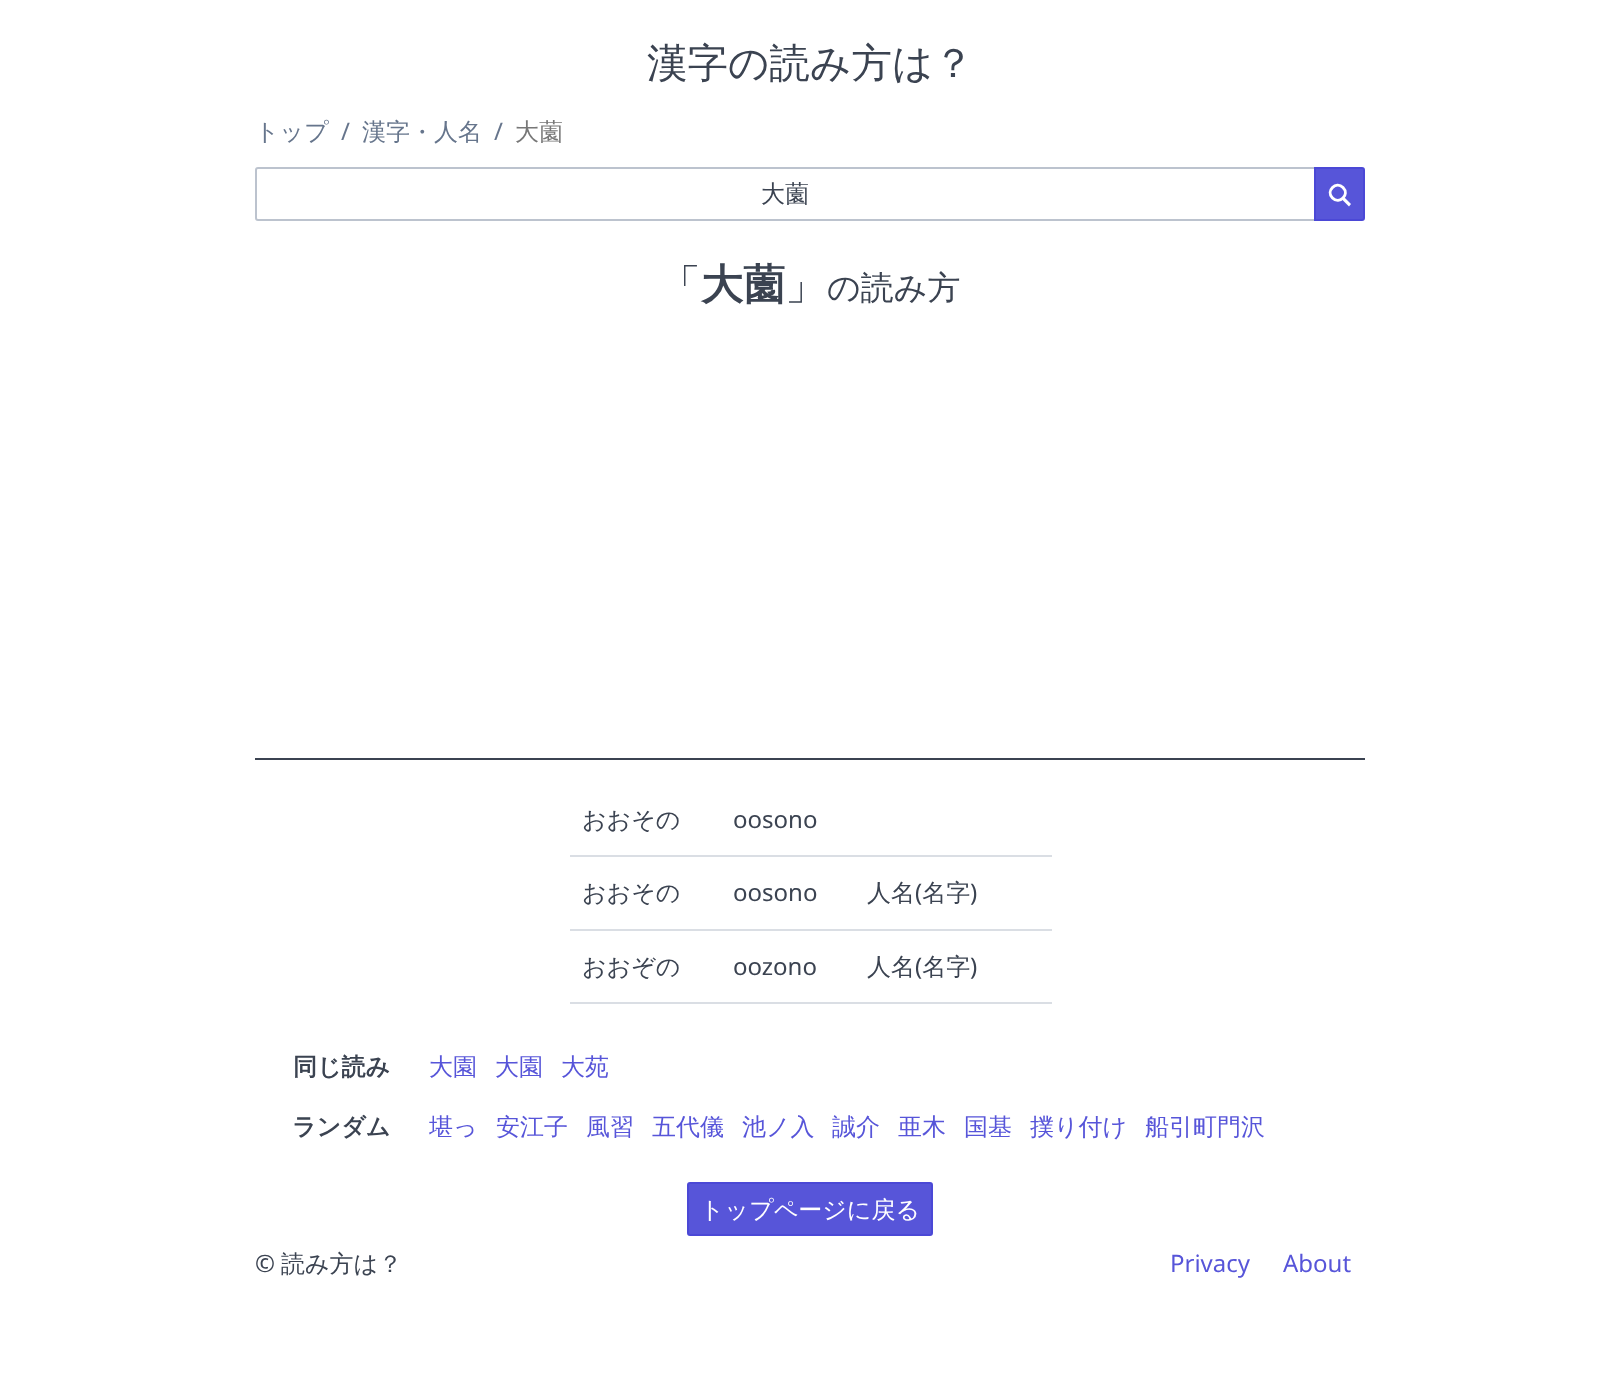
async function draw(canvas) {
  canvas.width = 1619;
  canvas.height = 1384;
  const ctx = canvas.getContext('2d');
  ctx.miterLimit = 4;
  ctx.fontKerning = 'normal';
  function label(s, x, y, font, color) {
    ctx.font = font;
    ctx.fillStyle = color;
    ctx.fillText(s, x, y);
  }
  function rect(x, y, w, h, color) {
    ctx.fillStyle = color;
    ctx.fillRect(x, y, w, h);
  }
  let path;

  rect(0, 0, 1619, 1384, '#fff');
  label('漢字の読み方は？', 647, 77, '500 40.5px WenQuanYi Zen Hei', '#3b4351');
  label('トップ', 255, 140, '500 24px WenQuanYi Zen Hei', '#66758c');
  label('/', 341, 140, '24px Noto Sans', '#66758c');
  label('漢字・人名', 362, 140, '500 24px WenQuanYi Zen Hei', '#66758c');
  label('/', 494, 140, '24px Noto Sans', '#66758c');
  label('大薗', 515, 140, '500 24px WenQuanYi Zen Hei', '#777');
  ctx.beginPath();
  ctx.roundRect(256, 168, 1059, 52, [2, 0, 0, 2]);
  ctx.strokeStyle = '#bcc3ce';
  ctx.lineWidth = 2;
  ctx.stroke();
  label('大薗', 761, 202, '500 24px WenQuanYi Zen Hei', '#3b4351');
  ctx.fillStyle = '#5755d9';
  ctx.beginPath();
  ctx.roundRect(1315, 168, 49, 52, [0, 2, 2, 0]);
  ctx.fill();
  ctx.strokeStyle = '#4b48d6';
  ctx.stroke();
  path = new Path2D('M1343 187.5C1350 194.5 1339.5 205 1332.5 198C1325.5 191 1336 180.5 1343 187.5Z');
  ctx.strokeStyle = '#fff';
  ctx.lineWidth = 3;
  ctx.stroke(path);
  ctx.fillStyle = '#fff';
  path = new Path2D('M1344.5 197.5L1351 204L1349 206.5L1342 199.5Z');
  ctx.fill(path);
  label('「', 659, 299, '500 42px WenQuanYi Zen Hei', '#3b4351');
  label('大薗', 701, 299, 'bold 42px WenQuanYi Zen Hei', '#3b4351');
  label('」', 785, 299, '500 42px WenQuanYi Zen Hei', '#3b4351');
  label('の読み方', 827, 299, '500 33px WenQuanYi Zen Hei', '#3b4351');
  rect(255, 758, 1110, 2, '#3b4351');
  label('おおその', 582, 828, '500 24px WenQuanYi Zen Hei', '#3b4351');
  label('oosono', 733, 828, '24px Noto Sans', '#3b4351');
  rect(570, 855, 482, 2, '#dadee4');
  label('おおその', 582, 901, '500 24px WenQuanYi Zen Hei', '#3b4351');
  label('oosono', 733, 901, '24px Noto Sans', '#3b4351');
  label('人名 名字', 867, 901, '500 24px WenQuanYi Zen Hei', '#3b4351');
  label('(', 915, 901, '24px Noto Sans', '#3b4351');
  label(')', 970, 901, '24px Noto Sans', '#3b4351');
  rect(570, 929, 482, 2, '#dadee4');
  label('おおぞの', 582, 975, '500 24px WenQuanYi Zen Hei', '#3b4351');
  label('oozono', 733, 975, '24px Noto Sans', '#3b4351');
  label('人名 名字', 867, 975, '500 24px WenQuanYi Zen Hei', '#3b4351');
  label('(', 915, 975, '24px Noto Sans', '#3b4351');
  label(')', 970, 975, '24px Noto Sans', '#3b4351');
  rect(570, 1002, 482, 2, '#dadee4');
  label('同じ読み', 293, 1075, 'bold 24px WenQuanYi Zen Hei', '#3b4351');
  label('大園', 429, 1075, '500 24px WenQuanYi Zen Hei', '#5755d9');
  label('大園', 495, 1075, '500 24px WenQuanYi Zen Hei', '#5755d9');
  label('大苑', 561, 1075, '500 24px WenQuanYi Zen Hei', '#5755d9');
  label('ランダム', 292, 1135, 'bold 24px WenQuanYi Zen Hei', '#3b4351');
  label('堪っ', 429, 1135, '500 24px WenQuanYi Zen Hei', '#5755d9');
  label('安江子', 496, 1135, '500 24px WenQuanYi Zen Hei', '#5755d9');
  label('風習', 586, 1135, '500 24px WenQuanYi Zen Hei', '#5755d9');
  label('五代儀', 652, 1135, '500 24px WenQuanYi Zen Hei', '#5755d9');
  label('池ノ入', 742, 1135, '500 24px WenQuanYi Zen Hei', '#5755d9');
  label('誠介', 832, 1135, '500 24px WenQuanYi Zen Hei', '#5755d9');
  label('亜木', 898, 1135, '500 24px WenQuanYi Zen Hei', '#5755d9');
  label('国基', 964, 1135, '500 24px WenQuanYi Zen Hei', '#5755d9');
  label('撲り付け', 1030, 1135, '500 24px WenQuanYi Zen Hei', '#5755d9');
  label('船引町門沢', 1145, 1135, '500 24px WenQuanYi Zen Hei', '#5755d9');
  ctx.beginPath();
  ctx.roundRect(688, 1183, 244, 52, 2);
  ctx.fill();
  ctx.strokeStyle = '#4b48d6';
  ctx.lineWidth = 2;
  ctx.stroke();
  label('トップページに戻る', 700, 1218, '500 24px WenQuanYi Zen Hei', '#fff');
  label('©', 255, 1272, '24px Noto Sans', '#3b4351');
  label('読み方は？', 281, 1272, '500 24px WenQuanYi Zen Hei', '#3b4351');
  label('Privacy', 1170, 1272, '24px Noto Sans', '#5755d9');
  label('About', 1283, 1272, '24px Noto Sans', '#5755d9');
}

draw(document.querySelector('canvas'));
